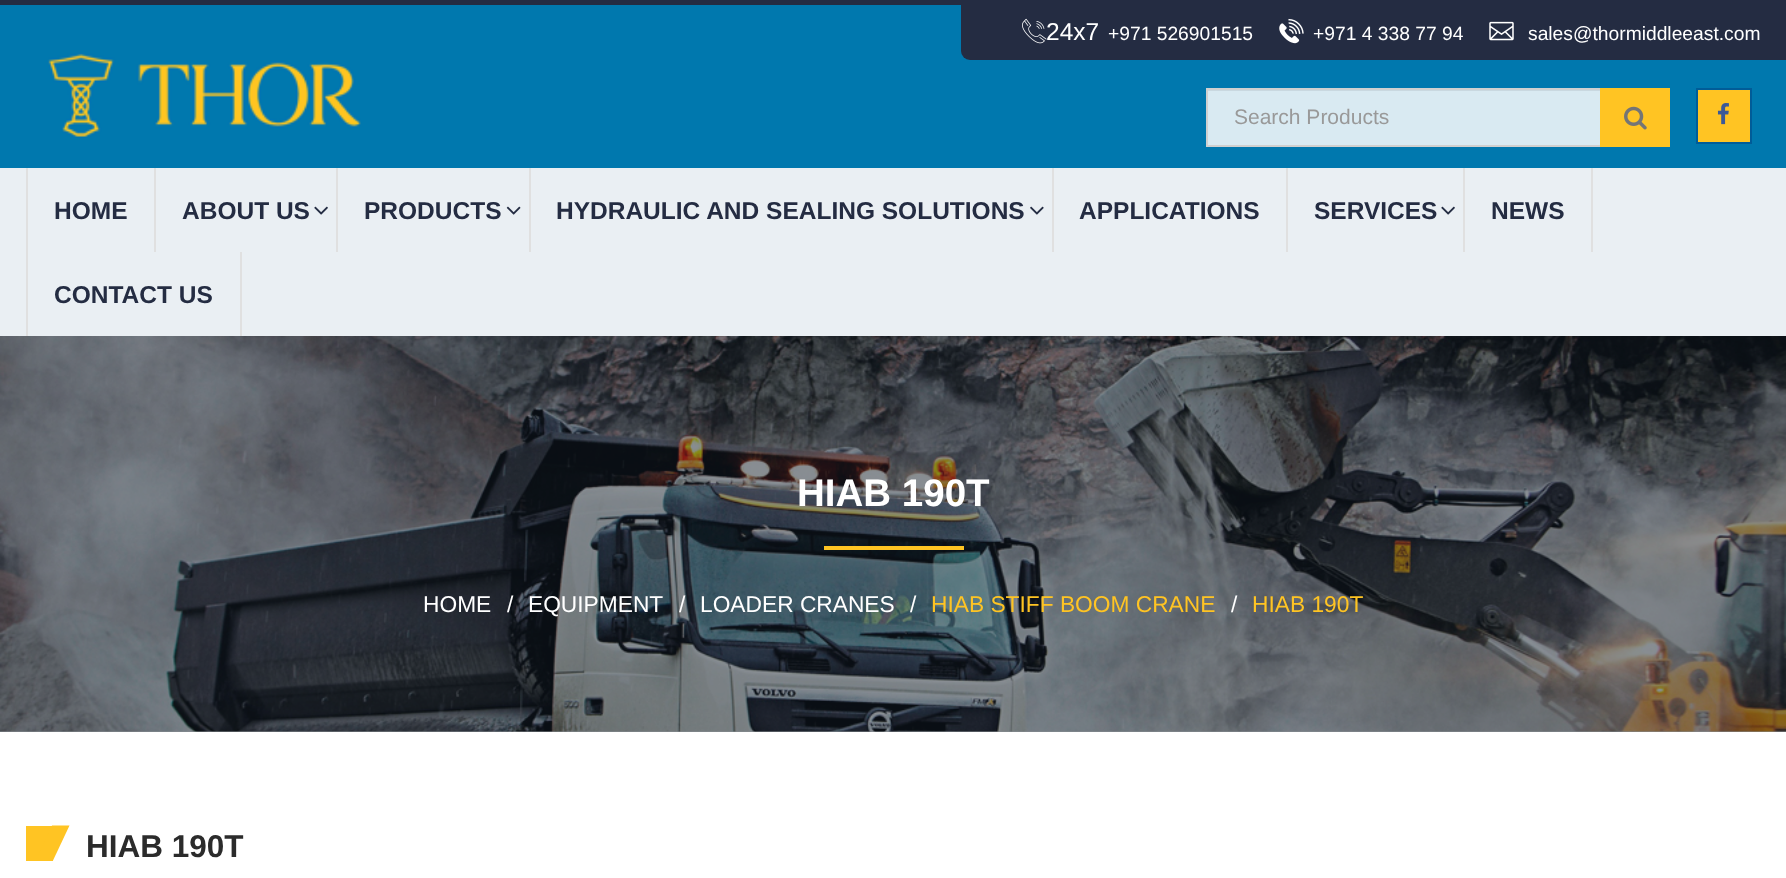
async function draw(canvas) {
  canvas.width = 1786;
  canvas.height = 878;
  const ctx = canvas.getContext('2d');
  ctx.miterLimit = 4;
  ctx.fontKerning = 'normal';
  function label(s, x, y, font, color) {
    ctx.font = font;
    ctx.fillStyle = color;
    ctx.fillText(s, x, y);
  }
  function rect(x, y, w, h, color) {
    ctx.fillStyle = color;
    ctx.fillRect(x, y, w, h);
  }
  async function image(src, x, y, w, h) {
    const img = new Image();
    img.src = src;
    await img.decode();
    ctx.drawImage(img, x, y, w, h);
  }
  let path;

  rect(0, 0, 1786, 878, '#fff');
  rect(0, 731, 1786, 1, '#898e93');
  rect(0, 5, 1786, 163, '#0078ae');
  rect(0, 0, 1786, 5, '#242c42');
  ctx.beginPath();
  ctx.roundRect(961, 5, 800, 55, [0, 0, 0, 9]);
  ctx.fill();
  await image('assets/img1.png', 1022, 18, 25, 26);
  label('24x7', 1046, 40, '24.5px Liberation Sans', '#fff');
  label('+971 526901515', 1108, 40, '19.25px Liberation Sans', '#fff');
  await image('assets/img2.png', 1279, 18, 25, 26);
  label('+971 4 338 77 94', 1313, 40, '19.25px Liberation Sans', '#fff');
  await image('assets/img3.png', 1489, 21, 25, 20);
  label('sales@thormiddleeast.com', 1528, 40, '19.25px Liberation Sans', '#fff');
  rect(1761, 5, 25, 55, '#242c42');
  await image('assets/img4.png', 48, 53, 313, 85);
  rect(1208, 91, 392, 54, '#d9eaf2');
  rect(1208, 90, 392, 1, '#c9d8e0');
  ctx.strokeStyle = '#d0d0d0';
  ctx.lineWidth = 2;
  ctx.strokeRect(1207, 89, 462, 57);
  label('Search Products', 1234, 124, '21px Liberation Sans', '#999');
  rect(1600, 88, 70, 59, '#ffc423');
  await image('assets/img5.png', 1624, 106, 23, 24);
  ctx.beginPath();
  ctx.rect(1697, 89, 54, 54);
  ctx.fill();
  ctx.strokeStyle = '#005c98';
  ctx.stroke();
  await image('assets/img6.png', 1717, 103, 12, 22);
  rect(0, 168, 1786, 168, '#eaeff3');
  rect(26, 168, 2, 168, '#e0e0e0');
  rect(154, 168, 2, 84, '#e0e0e0');
  label('HOME', 54, 219, 'bold 24.5px Liberation Sans', '#242c42');
  rect(336, 168, 2, 84, '#e0e0e0');
  label('ABOUT US', 182, 219, 'bold 24.5px Liberation Sans', '#242c42');
  await image('assets/img7.png', 314, 206, 14, 9);
  rect(529, 168, 2, 84, '#e0e0e0');
  label('PRODUCTS', 364, 219, 'bold 24.5px Liberation Sans', '#242c42');
  await image('assets/img8.png', 506, 206, 15, 9);
  rect(1052, 168, 2, 84, '#e0e0e0');
  label('HYDRAULIC AND SEALING SOLUTIONS', 556, 219, 'bold 24.5px Liberation Sans', '#242c42');
  await image('assets/img9.png', 1030, 206, 14, 9);
  rect(1286, 168, 2, 84, '#e0e0e0');
  label('APPLICATIONS', 1079, 219, 'bold 24.5px Liberation Sans', '#242c42');
  rect(1463, 168, 2, 84, '#e0e0e0');
  label('SERVICES', 1314, 219, 'bold 24.5px Liberation Sans', '#242c42');
  await image('assets/img7.png', 1441, 206, 14, 9);
  rect(1591, 168, 2, 84, '#e0e0e0');
  label('NEWS', 1491, 219, 'bold 24.5px Liberation Sans', '#242c42');
  rect(240, 252, 2, 84, '#e0e0e0');
  label('CONTACT US', 54, 303, 'bold 24.5px Liberation Sans', '#242c42');
  await image('assets/img10.png', 0, 336, 1786, 396);
  label('HIAB 190T', 797, 506, 'bold 38.5px Liberation Sans', '#fff');
  rect(824, 546, 140, 4, '#ffc423');
  label('HOME', 423, 612, '22.75px Liberation Sans', '#fff');
  label('/', 507, 612, '22.75px Liberation Sans', '#fff');
  label('EQUIPMENT', 528, 612, '22.75px Liberation Sans', '#fff');
  label('/', 679, 612, '22.75px Liberation Sans', '#fff');
  label('LOADER CRANES', 700, 612, '22.75px Liberation Sans', '#fff');
  label('/', 910, 612, '22.75px Liberation Sans', '#fff');
  label('HIAB STIFF BOOM CRANE', 931, 612, '22.75px Liberation Sans', '#ffc423');
  label('/', 1231, 612, '22.75px Liberation Sans', '#fff');
  label('HIAB 190T', 1252, 612, '22.75px Liberation Sans', '#ffc423');
  rect(26, 826, 27, 35, '#ffc423');
  path = new Path2D('M52 825.5H69.5L53 860.5H35.5Z');
  ctx.fill(path);
  label('HIAB 190T', 86, 857, 'bold 31.5px Liberation Sans', '#2b2b2b');
}

draw(document.querySelector('canvas'));
